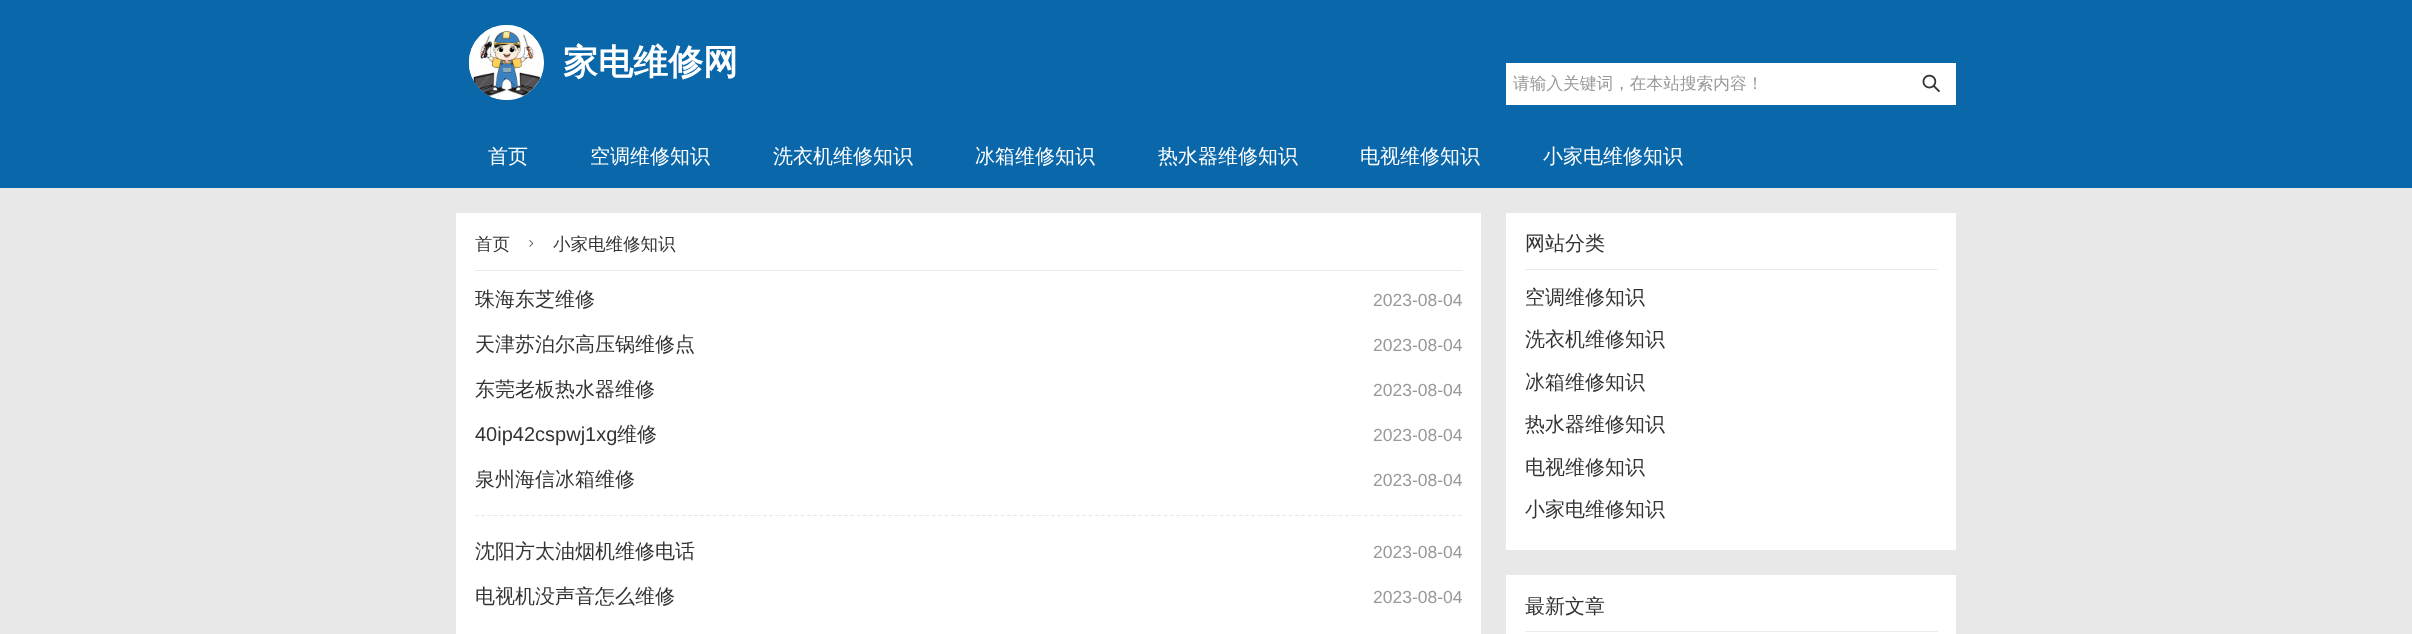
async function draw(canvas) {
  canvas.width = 2412;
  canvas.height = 634;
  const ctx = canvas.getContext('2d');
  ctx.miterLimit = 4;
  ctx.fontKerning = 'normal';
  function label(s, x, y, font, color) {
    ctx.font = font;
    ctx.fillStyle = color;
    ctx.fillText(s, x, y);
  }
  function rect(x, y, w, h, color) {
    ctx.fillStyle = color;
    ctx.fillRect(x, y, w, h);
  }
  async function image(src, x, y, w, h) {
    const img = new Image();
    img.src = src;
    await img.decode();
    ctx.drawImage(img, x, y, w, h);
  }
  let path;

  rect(0, 0, 2412, 634, '#0967aa');
  ctx.fillStyle = '#fff';
  ctx.beginPath();
  ctx.arc(506.5, 62.5, 37.5, 0, 2 * Math.PI);
  ctx.fill();
  await image('assets/img1.png', 468, 25, 76, 75);
  label('家电维修网', 563, 74, 'bold 35px WenQuanYi Zen Hei', '#fff');
  rect(1506, 63, 450, 42, '#fff');
  label('请输入关键词，在本站搜索内容！', 1513, 89, '500 16.7px WenQuanYi Zen Hei', '#999');
  await image('assets/img2.png', 1922, 74, 18, 19);
  label('首页', 488, 163, '500 20px WenQuanYi Zen Hei', '#fff');
  label('空调维修知识', 590, 163, '500 20px WenQuanYi Zen Hei', '#fff');
  label('洗衣机维修知识', 773, 163, '500 20px WenQuanYi Zen Hei', '#fff');
  label('冰箱维修知识', 975, 163, '500 20px WenQuanYi Zen Hei', '#fff');
  label('热水器维修知识', 1158, 163, '500 20px WenQuanYi Zen Hei', '#fff');
  label('电视维修知识', 1360, 163, '500 20px WenQuanYi Zen Hei', '#fff');
  label('小家电维修知识', 1543, 163, '500 20px WenQuanYi Zen Hei', '#fff');
  rect(0, 188, 2412, 446, '#e8e8e8');
  rect(456, 213, 1025, 421, '#fff');
  rect(475, 270, 988, 1, '#ebebeb');
  label('首页', 475, 250, '500 17.5px WenQuanYi Zen Hei', '#333');
  await image('assets/img3.png', 529, 240, 5, 7);
  label('小家电维修知识', 553, 250, '500 17.5px WenQuanYi Zen Hei', '#333');
  label('珠海东芝维修', 475, 306, '500 20px WenQuanYi Zen Hei', '#333');
  label('2023-08-04', 1373, 306, '17.5px Liberation Sans', '#999');
  label('天津苏泊尔高压锅维修点', 475, 351, '500 20px WenQuanYi Zen Hei', '#333');
  label('2023-08-04', 1373, 351, '17.5px Liberation Sans', '#999');
  label('东莞老板热水器维修', 475, 396, '500 20px WenQuanYi Zen Hei', '#333');
  label('2023-08-04', 1373, 396, '17.5px Liberation Sans', '#999');
  label('40ip42cspwj1xg', 475, 441, '20px Liberation Sans', '#333');
  label('维修', 617, 441, '500 20px WenQuanYi Zen Hei', '#333');
  label('2023-08-04', 1373, 441, '17.5px Liberation Sans', '#999');
  path = new Path2D('M475 515.5H1462.5');
  ctx.strokeStyle = '#e6e6e6';
  ctx.lineWidth = 1.2;
  ctx.setLineDash([3.75, 2.51]);
  ctx.stroke(path);
  label('泉州海信冰箱维修', 475, 486, '500 20px WenQuanYi Zen Hei', '#333');
  label('2023-08-04', 1373, 486, '17.5px Liberation Sans', '#999');
  label('沈阳方太油烟机维修电话', 475, 558, '500 20px WenQuanYi Zen Hei', '#333');
  label('2023-08-04', 1373, 558, '17.5px Liberation Sans', '#999');
  label('电视机没声音怎么维修', 475, 603, '500 20px WenQuanYi Zen Hei', '#333');
  label('2023-08-04', 1373, 603, '17.5px Liberation Sans', '#999');
  rect(1506, 213, 450, 337, '#fff');
  rect(1525, 269, 413, 1, '#ebebeb');
  label('网站分类', 1525, 250, '500 20px WenQuanYi Zen Hei', '#333');
  label('空调维修知识', 1525, 304, '500 20px WenQuanYi Zen Hei', '#333');
  label('洗衣机维修知识', 1525, 346, '500 20px WenQuanYi Zen Hei', '#333');
  label('冰箱维修知识', 1525, 389, '500 20px WenQuanYi Zen Hei', '#333');
  label('热水器维修知识', 1525, 431, '500 20px WenQuanYi Zen Hei', '#333');
  label('电视维修知识', 1525, 474, '500 20px WenQuanYi Zen Hei', '#333');
  label('小家电维修知识', 1525, 516, '500 20px WenQuanYi Zen Hei', '#333');
  rect(1506, 575, 450, 59, '#fff');
  rect(1525, 631, 413, 1, '#ebebeb');
  label('最新文章', 1525, 613, '500 20px WenQuanYi Zen Hei', '#333');
}

draw(document.querySelector('canvas'));
